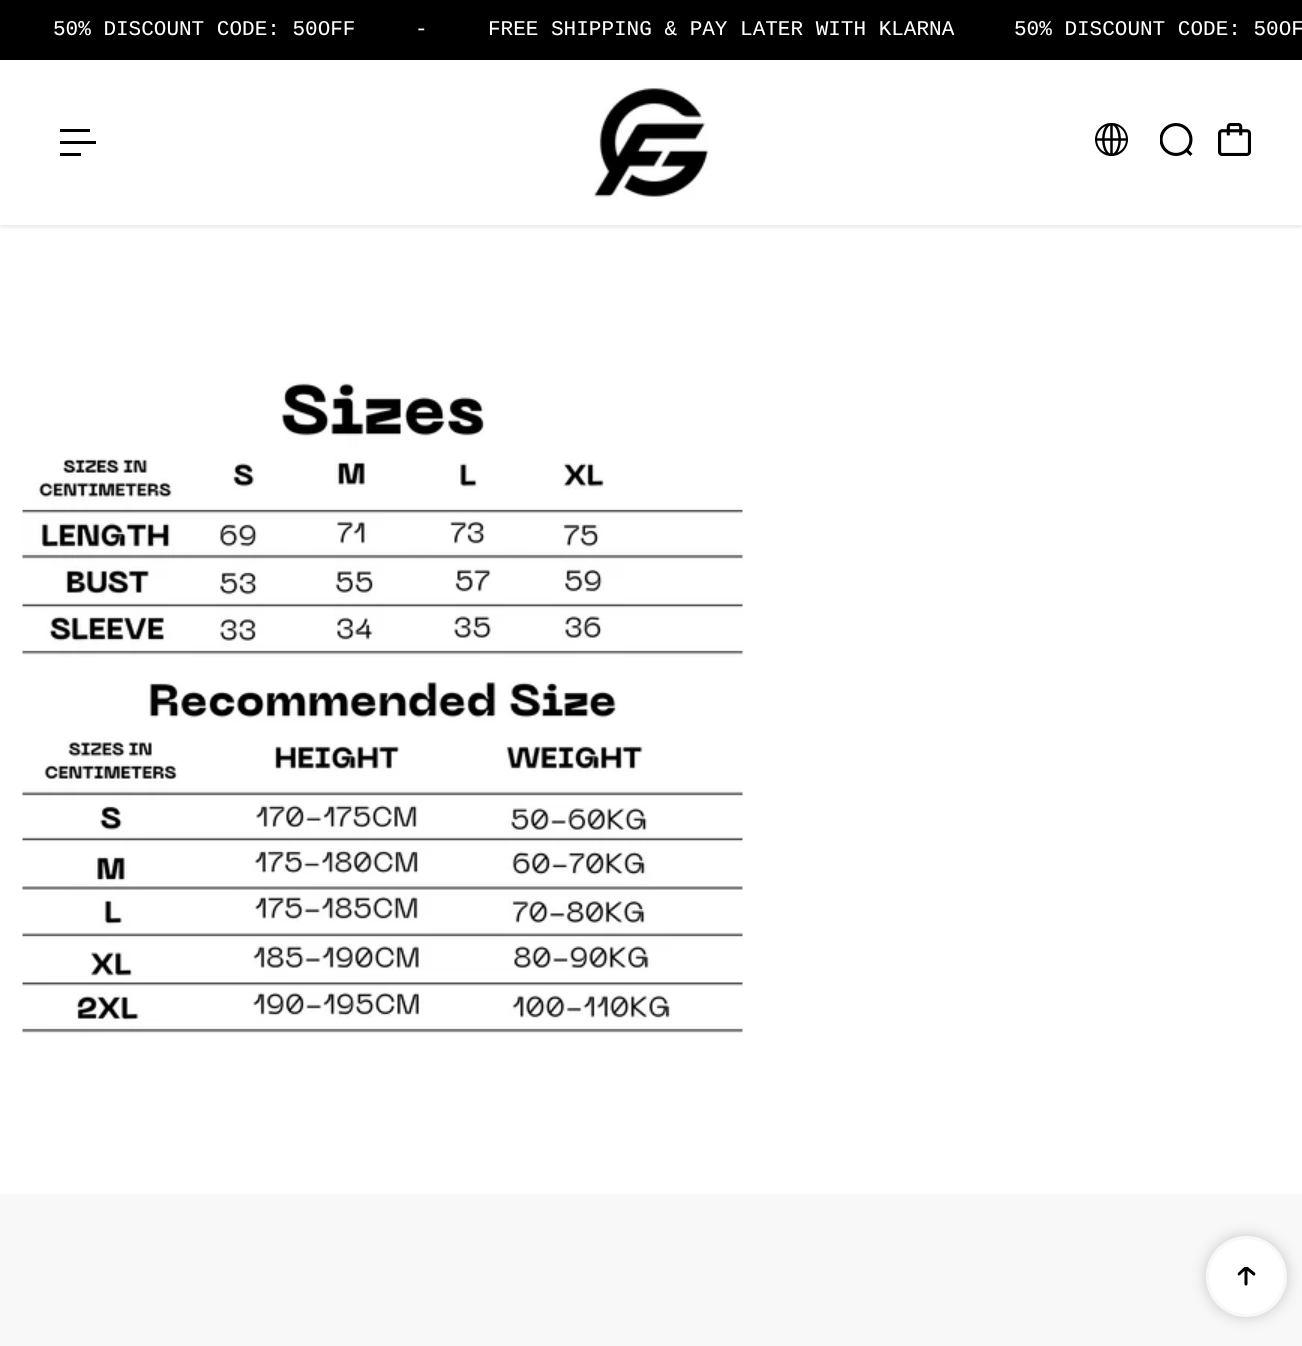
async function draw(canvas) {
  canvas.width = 1302;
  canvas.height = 1346;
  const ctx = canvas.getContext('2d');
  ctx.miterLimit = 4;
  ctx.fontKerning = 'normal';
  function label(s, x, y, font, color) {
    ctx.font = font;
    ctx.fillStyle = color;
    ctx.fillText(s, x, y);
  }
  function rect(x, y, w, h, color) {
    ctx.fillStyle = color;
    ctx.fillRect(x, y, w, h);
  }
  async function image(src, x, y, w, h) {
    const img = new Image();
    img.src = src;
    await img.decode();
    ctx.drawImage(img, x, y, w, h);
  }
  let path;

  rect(0, 0, 1302, 1346, '#fff');
  ctx.save();
  ctx.beginPath();
  ctx.rect(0, 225, 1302, 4);
  ctx.clip();
  ctx.fillStyle = '#0000001a';
  ctx.filter = 'blur(2px)';
  ctx.beginPath();
  ctx.rect(0, 62, 1302, 165);
  ctx.fill();
  ctx.filter = 'none';
  ctx.restore();
  rect(0, 0, 1302, 60, '#000');
  label('50% DISCOUNT CODE: 50OFF', 53, 35, '21px Liberation Mono', '#fff');
  label('-', 415, 35, '21px Liberation Mono', '#fff');
  label('FREE SHIPPING & PAY LATER WITH KLARNA', 488, 35, '21px Liberation Mono', '#fff');
  label('50% DISCOUNT CODE: 50OF', 1014, 35, '21px Liberation Mono', '#fff');
  rect(60, 129, 30, 3, '#000');
  rect(60, 141, 36, 3, '#000');
  rect(60, 153, 21, 3, '#000');
  await image('assets/img1.png', 593, 86, 116, 113);
  await image('assets/img2.png', 1095, 123, 33, 33);
  await image('assets/img3.png', 1160, 123, 33, 33);
  await image('assets/img4.png', 1218, 123, 33, 33);
  await image('assets/img5.png', 22, 381, 721, 653);
  rect(0, 1194, 1302, 152, '#f8f8f8');
  ctx.save();
  path = new Path2D('M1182 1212H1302V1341H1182ZM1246.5 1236C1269 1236 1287 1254 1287 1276.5C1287 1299 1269 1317 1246.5 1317C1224 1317 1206 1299 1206 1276.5C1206 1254 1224 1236 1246.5 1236Z');
  ctx.clip(path, 'evenodd');
  ctx.fillStyle = '#00000033';
  ctx.filter = 'blur(7.5px)';
  ctx.beginPath();
  ctx.roundRect(1206, 1236, 81, 81, 40.5);
  ctx.fill();
  ctx.filter = 'none';
  ctx.restore();
  ctx.fillStyle = '#fff';
  ctx.beginPath();
  ctx.arc(1246.5, 1276.5, 37.5, 0, 2 * Math.PI);
  ctx.fill();
  ctx.save();
  path = new Path2D('M1237.5 1286V1267H1255.5V1286Z');
  ctx.clip(path);
  path = new Path2D('M1246 1284V1268M1254 1274L1246 1267.5L1239 1274');
  ctx.strokeStyle = '#000';
  ctx.lineWidth = 3;
  ctx.lineCap = 'round';
  ctx.lineJoin = 'round';
  ctx.stroke(path);
  ctx.restore();
}

draw(document.querySelector('canvas'));
